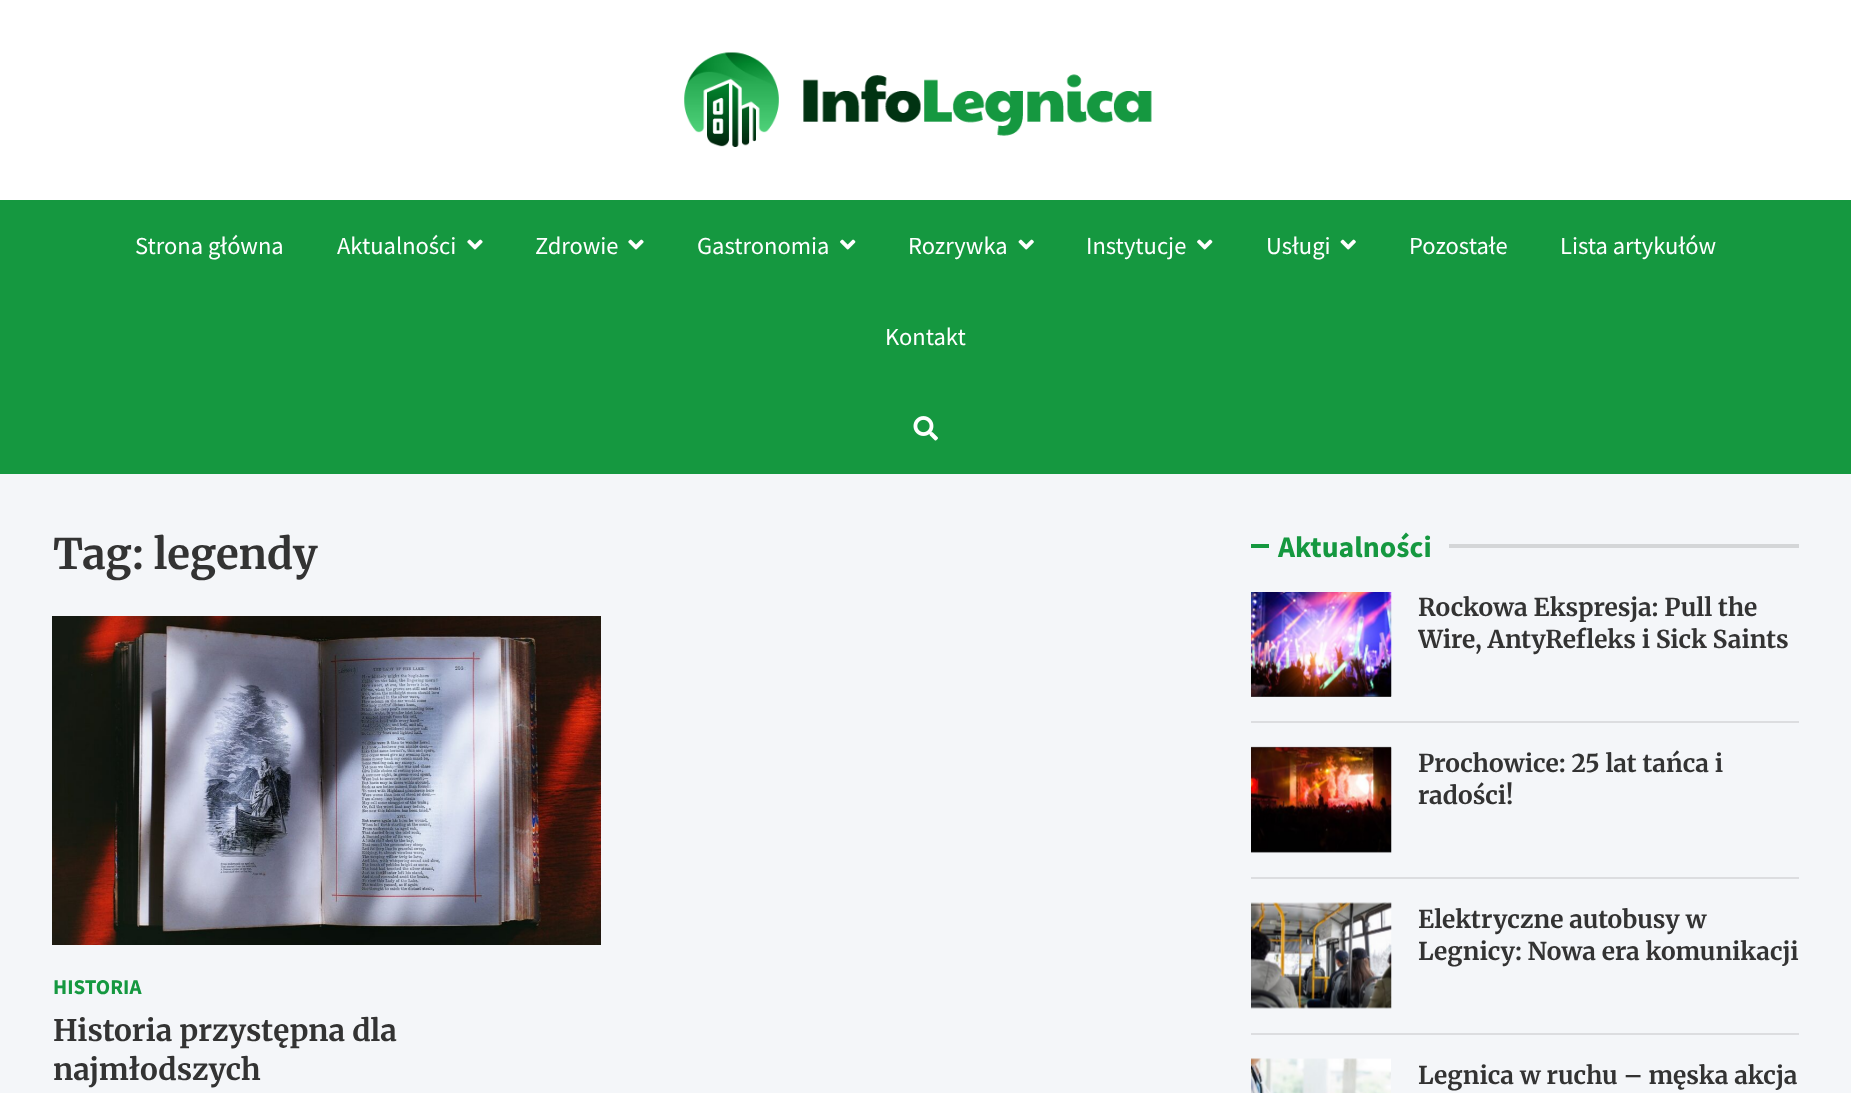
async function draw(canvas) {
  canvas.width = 1851;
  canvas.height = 1093;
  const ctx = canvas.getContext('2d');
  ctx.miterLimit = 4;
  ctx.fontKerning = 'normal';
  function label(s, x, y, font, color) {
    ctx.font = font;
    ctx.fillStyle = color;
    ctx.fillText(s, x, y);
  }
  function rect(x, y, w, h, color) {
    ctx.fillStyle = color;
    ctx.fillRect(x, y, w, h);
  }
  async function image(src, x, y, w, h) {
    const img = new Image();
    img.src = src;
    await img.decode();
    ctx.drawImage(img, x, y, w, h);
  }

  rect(0, 0, 1851, 1093, '#f4f6f9');
  rect(0, 0, 1851, 200, '#fff');
  await image('assets/img1.png', 684, 52, 468, 95);
  rect(0, 200, 1851, 274, '#159840');
  label('Strona główna', 135, 254, '24.5px Source Sans Pro', '#fff');
  label('Aktualności', 337, 254, '24.5px Source Sans Pro', '#fff');
  await image('assets/img2.png', 467, 239, 16, 11);
  label('Zdrowie', 535, 254, '24.5px Source Sans Pro', '#fff');
  await image('assets/img2.png', 628, 239, 16, 11);
  label('Gastronomia', 697, 254, '24.5px Source Sans Pro', '#fff');
  await image('assets/img3.png', 840, 239, 16, 11);
  label('Rozrywka', 908, 254, '24.5px Source Sans Pro', '#fff');
  await image('assets/img4.png', 1018, 239, 16, 11);
  label('Instytucje', 1086, 254, '24.5px Source Sans Pro', '#fff');
  await image('assets/img3.png', 1197, 239, 16, 11);
  label('Usługi', 1266, 254, '24.5px Source Sans Pro', '#fff');
  await image('assets/img4.png', 1340, 239, 16, 11);
  label('Pozostałe', 1409, 254, '24.5px Source Sans Pro', '#fff');
  label('Lista artykułów', 1560, 254, '24.5px Source Sans Pro', '#fff');
  label('Kontakt', 885, 345, '24.5px Source Sans Pro', '#fff');
  await image('assets/img5.png', 913, 416, 25, 25);
  label('Tag: legendy', 53, 569, 'bold 42px Merriweather', '#333');
  await image('assets/img6.png', 52, 616, 549, 329);
  label('HISTORIA', 53, 994, 'bold 21px Source Sans Pro', '#159840');
  label('Historia przystępna dla', 53, 1041, 'bold 29.75px Merriweather', '#333');
  label('najmłodszych', 53, 1080, 'bold 29.75px Merriweather', '#333');
  rect(1251, 544, 18, 4, '#159840');
  label('Aktualności', 1278, 557, 'bold 29.75px Source Sans Pro', '#159840');
  rect(1449, 544, 350, 4, '#d4d6d8');
  rect(1251, 696, 140, 1, '#555');
  await image('assets/img7.png', 1251, 592, 141, 105);
  label('Rockowa Ekspresja: Pull the', 1418, 616, 'bold 24.5px Merriweather', '#333');
  ctx.save();
  ctx.beginPath();
  ctx.rect(1418, 592, 381, 64);
  ctx.clip();
  label('Wire, AntyRefleks i Sick Saints', 1418, 648, 'bold 24.5px Merriweather', '#333');
  ctx.restore();
  rect(1251, 721, 548, 2, '#dcdde0');
  rect(1251, 747, 140, 105, '#555');
  await image('assets/img8.png', 1251, 746, 141, 107);
  label('Prochowice: 25 lat tańca i', 1418, 772, 'bold 24.5px Merriweather', '#333');
  label('radości!', 1418, 804, 'bold 24.5px Merriweather', '#333');
  rect(1251, 877, 548, 2, '#dcdde0');
  await image('assets/img9.png', 1251, 902, 141, 107);
  label('Elektryczne autobusy w', 1418, 928, 'bold 24.5px Merriweather', '#333');
  label('Legnicy: Nowa era komunikacji', 1418, 960, 'bold 24.5px Merriweather', '#333');
  rect(1251, 1033, 548, 2, '#dcdde0');
  await image('assets/img10.png', 1251, 1058, 140, 35);
  label('Legnica w ruchu – męska akcja', 1418, 1084, 'bold 24.5px Merriweather', '#333');
}

draw(document.querySelector('canvas'));
